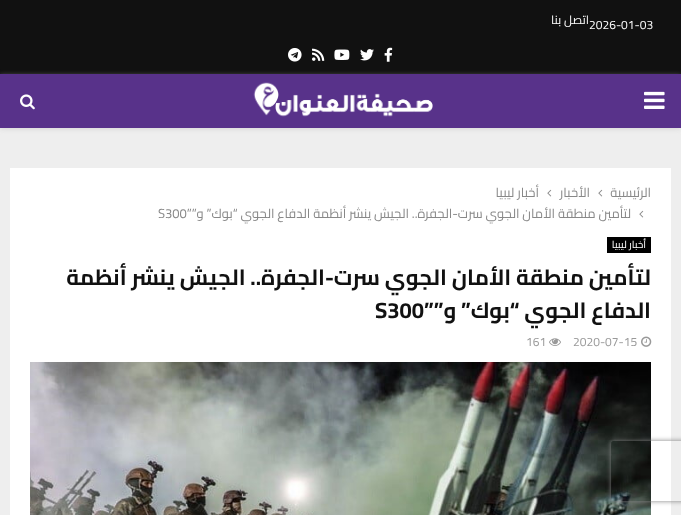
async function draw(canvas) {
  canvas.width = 681;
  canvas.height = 515;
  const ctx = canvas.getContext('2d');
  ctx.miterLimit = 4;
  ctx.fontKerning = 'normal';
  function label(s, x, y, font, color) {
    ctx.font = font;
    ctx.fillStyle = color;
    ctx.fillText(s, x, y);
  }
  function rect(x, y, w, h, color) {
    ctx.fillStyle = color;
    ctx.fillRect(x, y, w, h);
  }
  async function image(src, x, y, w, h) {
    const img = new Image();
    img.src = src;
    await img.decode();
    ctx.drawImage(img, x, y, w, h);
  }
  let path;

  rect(0, 0, 681, 515, '#eee');
  rect(0, 0, 681, 74, '#111');
  label('2026-01-03', 589, 29, '12px Cairo', '#fff');
  ctx.direction = 'rtl';
  label('اتصل بنا', 589, 24, '12px Cairo', '#fff');
  await image('assets/img1.png', 384, 47, 9, 15);
  await image('assets/img2.png', 360, 49, 14, 12);
  await image('assets/img3.png', 334, 49, 16, 11);
  await image('assets/img4.png', 312, 48, 13, 13);
  await image('assets/img5.png', 288, 48, 14, 14);
  ctx.fillStyle = '#bebebe75';
  ctx.filter = 'blur(2.5px)';
  ctx.beginPath();
  ctx.rect(0, 75, 681, 54);
  ctx.fill();
  ctx.filter = 'none';
  rect(0, 74, 681, 54, '#58328a');
  await image('assets/img6.png', 644, 91, 21, 18);
  await image('assets/img7.png', 253, 82, 180, 35);
  await image('assets/img8.png', 20, 94, 15, 16);
  rect(10, 168, 661, 347, '#fff');
  label('الرئيسية', 651, 197, '13px Cairo', '#888');
  await image('assets/img9.png', 598, 189, 5, 8);
  label('الأخبار', 590, 197, '13px Cairo', '#888');
  await image('assets/img9.png', 547, 189, 5, 8);
  label('أخبار ليبيا', 539, 197, '13px Cairo', '#888');
  await image('assets/img9.png', 639, 210, 5, 8);
  label('لتأمين منطقة الأمان الجوي سرت-الجفرة.. الجيش ينشر أنظمة الدفاع الجوي “بوك” و””', 631, 218, '13px Cairo', '#888');
  ctx.direction = 'ltr';
  label('S300', 158, 218, '13px Cairo', '#888');
  rect(607, 237, 44, 16, '#000');
  ctx.direction = 'rtl';
  label('أخبار ليبيا', 646, 248, '500 10px Cairo', '#fff');
  label('لتأمين منطقة الأمان الجوي سرت-الجفرة.. الجيش ينشر أنظمة', 651, 285, 'bold 22px Cairo', '#111');
  label('الدفاع الجوي “بوك” و””', 651, 318, 'bold 22px Cairo', '#111');
  ctx.direction = 'ltr';
  label('S300', 375, 318, 'bold 22px Cairo', '#111');
  await image('assets/img10.png', 641, 336, 11, 11);
  label('2020-07-15', 573, 346, '12px Cairo', '#999');
  await image('assets/img11.png', 549, 338, 12, 8);
  label('161', 526, 346, '12px Cairo', '#999');
  await image('assets/img12.png', 30, 362, 621, 153);
  ctx.save();
  path = new Path2D('M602 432H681V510H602ZM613 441H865C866 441 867 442 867 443V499C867 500 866 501 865 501H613C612 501 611 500 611 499V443C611 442 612 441 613 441Z');
  ctx.clip(path, 'evenodd');
  ctx.fillStyle = '#808080';
  ctx.filter = 'blur(2.5px)';
  ctx.beginPath();
  ctx.roundRect(611, 441, 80, 60, 2);
  ctx.fill();
  ctx.filter = 'none';
  ctx.restore();
}

draw(document.querySelector('canvas'));
